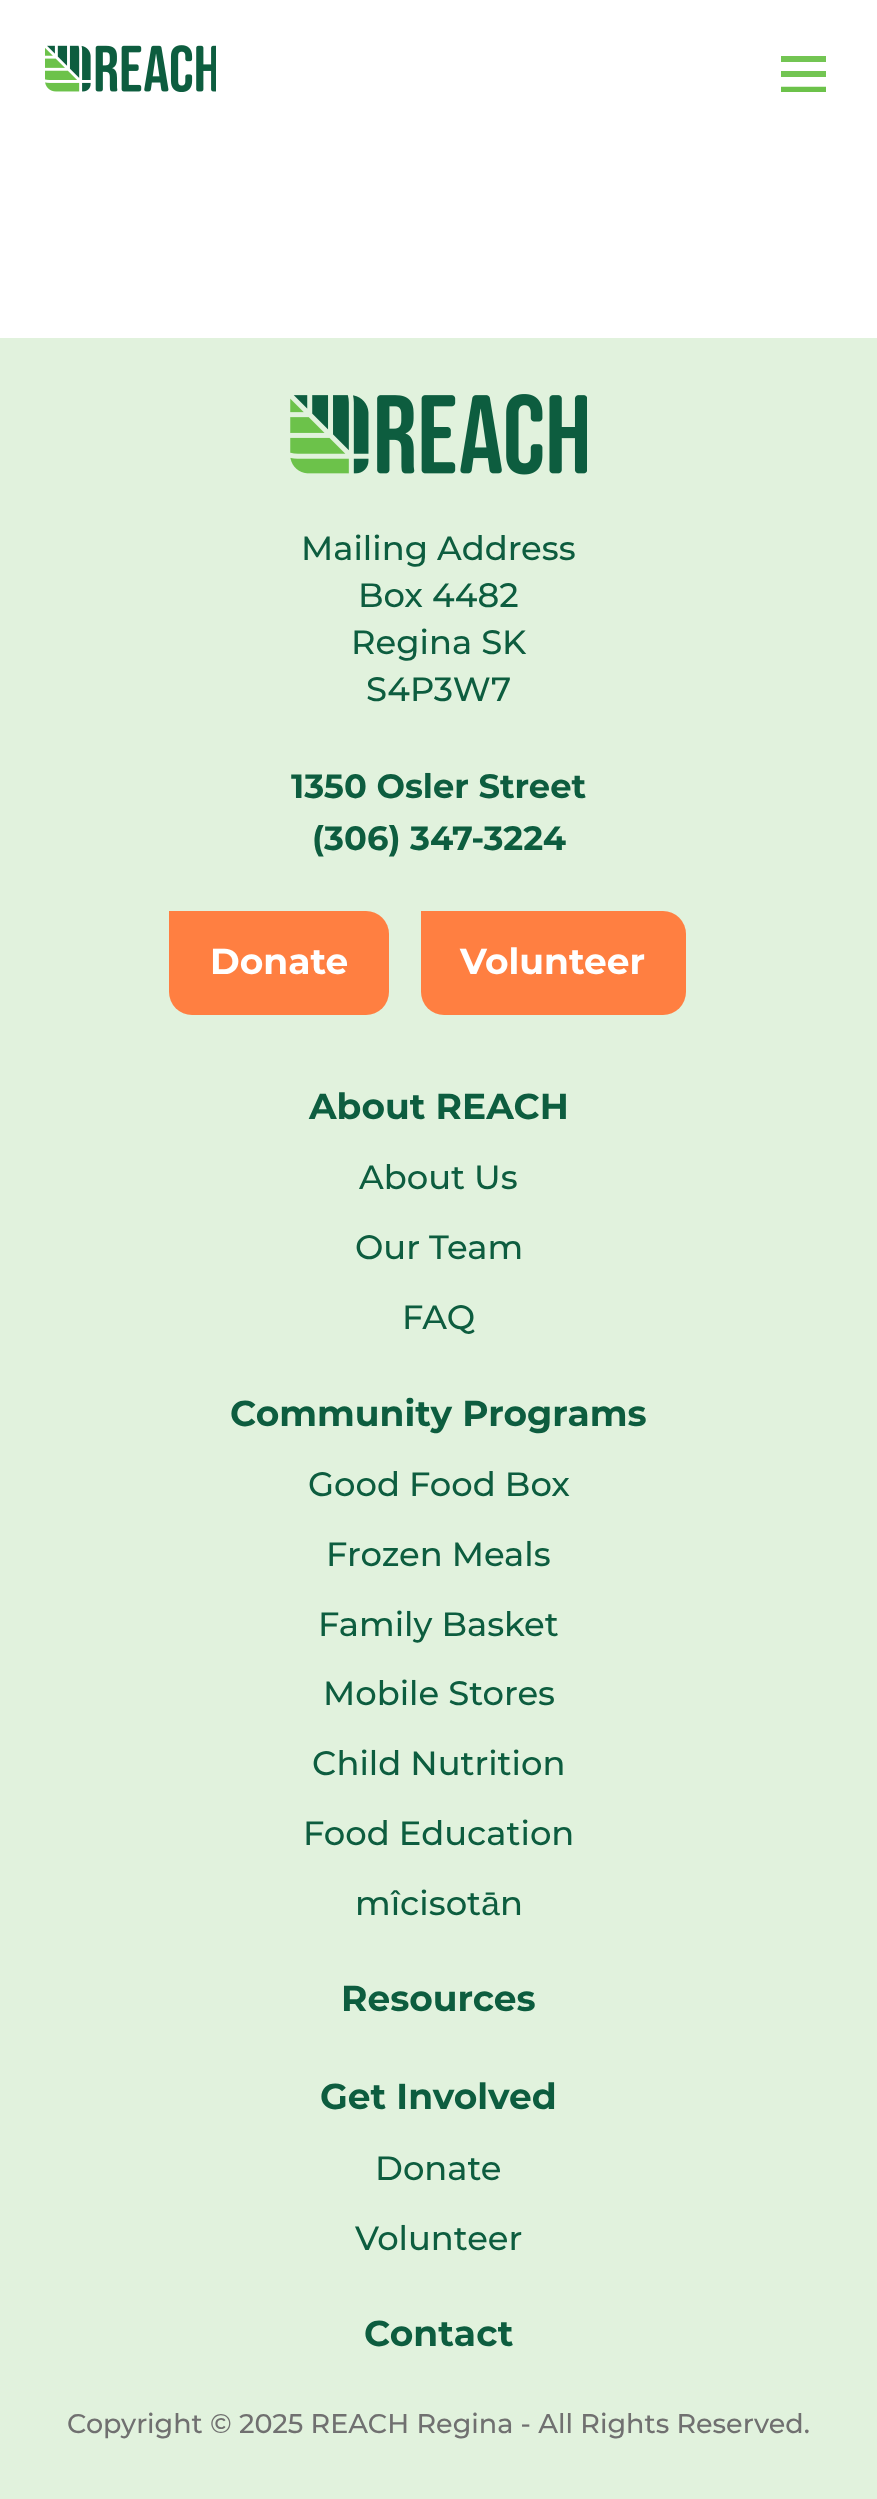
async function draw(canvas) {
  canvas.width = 877;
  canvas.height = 2499;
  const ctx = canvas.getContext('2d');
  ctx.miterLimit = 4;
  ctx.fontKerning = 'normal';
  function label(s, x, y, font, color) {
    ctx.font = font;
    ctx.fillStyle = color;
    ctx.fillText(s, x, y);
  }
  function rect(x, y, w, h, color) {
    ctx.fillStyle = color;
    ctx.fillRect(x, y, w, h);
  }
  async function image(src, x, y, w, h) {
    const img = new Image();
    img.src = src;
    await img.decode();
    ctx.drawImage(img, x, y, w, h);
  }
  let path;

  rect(0, 0, 877, 2499, '#fff');
  await image('assets/img1.png', 45, 45, 171, 47);
  rect(781, 56, 45, 6, '#73c553');
  rect(781, 71, 45, 6, '#73c553');
  ctx.save();
  ctx.beginPath();
  ctx.rect(781, 56, 45, 36);
  ctx.clip();
  path = new Path2D('M781 89.5H826M781 89.5H826');
  ctx.strokeStyle = '#6cc24a';
  ctx.lineWidth = 5.7;
  ctx.stroke(path);
  ctx.restore();
  rect(0, 338, 877, 2161, '#e1f2dd');
  await image('assets/img2.png', 290, 394, 297, 81);
  label('Mailing Address', 301, 560, '500 33.75px Montserrat', '#0d5d3f');
  label('Box 4482', 358, 607, '500 33.75px Montserrat', '#0d5d3f');
  label('Regina SK', 351, 654, '500 33.75px Montserrat', '#0d5d3f');
  label('S4P3W7', 366, 701, '500 33.75px Montserrat', '#0d5d3f');
  label('1350 Osler Street', 291, 798, 'bold 33.75px Montserrat', '#0d5d3f');
  label('(306) 347-3224', 312, 850, 'bold 33.75px Montserrat', '#0d5d3f');
  ctx.fillStyle = '#ff7f41';
  ctx.beginPath();
  ctx.roundRect(169, 911, 220, 104, [0, 23, 23, 23]);
  ctx.fill();
  label('Donate', 210, 974, 'bold 36px Montserrat', '#fff');
  ctx.fillStyle = '#ff7f41';
  ctx.beginPath();
  ctx.roundRect(421, 911, 265, 104, [0, 23, 23, 23]);
  ctx.fill();
  label('Volunteer', 460, 974, 'bold 36px Montserrat', '#fff');
  label('About REACH', 309, 1119, 'bold 36px Montserrat', '#0d5d3f');
  label('About Us', 359, 1189, '500 33.75px Montserrat', '#0d5d3f');
  label('Our Team', 355, 1259, '500 33.75px Montserrat', '#0d5d3f');
  label('FAQ', 402, 1329, '500 33.75px Montserrat', '#0d5d3f');
  label('Community Programs', 230, 1426, 'bold 36px Montserrat', '#0d5d3f');
  label('Good Food Box', 308, 1496, '500 33.75px Montserrat', '#0d5d3f');
  label('Frozen Meals', 326, 1566, '500 33.75px Montserrat', '#0d5d3f');
  label('Family Basket', 318, 1636, '500 33.75px Montserrat', '#0d5d3f');
  label('Mobile Stores', 323, 1705, '500 33.75px Montserrat', '#0d5d3f');
  label('Child Nutrition', 312, 1775, '500 33.75px Montserrat', '#0d5d3f');
  label('Food Education', 303, 1845, '500 33.75px Montserrat', '#0d5d3f');
  label('mîcisot', 355, 1915, '500 33.75px Montserrat', '#0d5d3f');
  label('ā', 481, 1915, '33.75px Liberation Sans', '#0d5d3f');
  label('n', 500, 1915, '500 33.75px Montserrat', '#0d5d3f');
  label('Resources', 341, 2011, 'bold 36px Montserrat', '#0d5d3f');
  label('Get Involved', 320, 2109, 'bold 36px Montserrat', '#0d5d3f');
  label('Donate', 375, 2180, '500 33.75px Montserrat', '#0d5d3f');
  label('Volunteer', 355, 2250, '500 33.75px Montserrat', '#0d5d3f');
  label('Contact', 364, 2346, 'bold 36px Montserrat', '#0d5d3f');
  label('Copyright © 2025 REACH Regina - All Rights Reserved.', 67, 2433, '500 27px Montserrat', '#707070');
}

draw(document.querySelector('canvas'));
